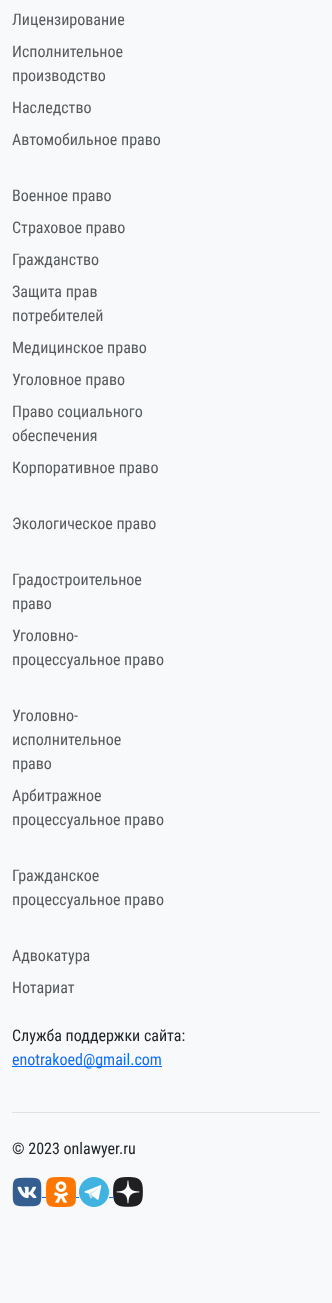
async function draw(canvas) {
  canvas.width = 332;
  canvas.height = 1303;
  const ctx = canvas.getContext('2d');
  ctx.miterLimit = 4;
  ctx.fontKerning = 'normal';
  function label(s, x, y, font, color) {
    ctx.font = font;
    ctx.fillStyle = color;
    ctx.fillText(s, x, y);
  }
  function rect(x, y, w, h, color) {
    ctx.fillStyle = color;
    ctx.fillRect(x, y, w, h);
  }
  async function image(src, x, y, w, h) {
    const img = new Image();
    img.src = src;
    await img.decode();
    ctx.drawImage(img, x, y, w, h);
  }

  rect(0, 0, 332, 1303, '#f8f9fa');
  label('Лицензирование', 12, 25, '16px Roboto Condensed', '#575a5d');
  label('Исполнительное', 12, 57, '16px Roboto Condensed', '#575a5d');
  label('производство', 12, 81, '16px Roboto Condensed', '#575a5d');
  label('Наследство', 12, 113, '16px Roboto Condensed', '#575a5d');
  label('Автомобильное право', 12, 145, '16px Roboto Condensed', '#575a5d');
  label('Военное право', 12, 201, '16px Roboto Condensed', '#575a5d');
  label('Страховое право', 12, 233, '16px Roboto Condensed', '#575a5d');
  label('Гражданство', 12, 265, '16px Roboto Condensed', '#575a5d');
  label('Защита прав', 12, 297, '16px Roboto Condensed', '#575a5d');
  label('потребителей', 12, 321, '16px Roboto Condensed', '#575a5d');
  label('Медицинское право', 12, 353, '16px Roboto Condensed', '#575a5d');
  label('Уголовное право', 12, 385, '16px Roboto Condensed', '#575a5d');
  label('Право социального', 12, 417, '16px Roboto Condensed', '#575a5d');
  label('обеспечения', 12, 441, '16px Roboto Condensed', '#575a5d');
  label('Корпоративное право', 12, 473, '16px Roboto Condensed', '#575a5d');
  label('Экологическое право', 12, 529, '16px Roboto Condensed', '#575a5d');
  label('Градостроительное', 12, 585, '16px Roboto Condensed', '#575a5d');
  label('право', 12, 609, '16px Roboto Condensed', '#575a5d');
  label('Уголовно-', 12, 641, '16px Roboto Condensed', '#575a5d');
  label('процессуальное право', 12, 665, '16px Roboto Condensed', '#575a5d');
  label('Уголовно-', 12, 721, '16px Roboto Condensed', '#575a5d');
  label('исполнительное', 12, 745, '16px Roboto Condensed', '#575a5d');
  label('право', 12, 769, '16px Roboto Condensed', '#575a5d');
  label('Арбитражное', 12, 801, '16px Roboto Condensed', '#575a5d');
  label('процессуальное право', 12, 825, '16px Roboto Condensed', '#575a5d');
  label('Гражданское', 12, 881, '16px Roboto Condensed', '#575a5d');
  label('процессуальное право', 12, 905, '16px Roboto Condensed', '#575a5d');
  label('Адвокатура', 12, 961, '16px Roboto Condensed', '#575a5d');
  label('Нотариат', 12, 993, '16px Roboto Condensed', '#575a5d');
  label('Служба поддержки сайта:', 12, 1041, '16px Roboto Condensed', '#212529');
  rect(12, 1066, 150, 1, '#0d6efd');
  label('enotrakoed@gmail.com', 12, 1065, '16px Roboto Condensed', '#0d6efd');
  rect(12, 1112, 308, 1, '#dee2e6');
  label('© 2023 onlawyer.ru', 12, 1154, '16px Roboto Condensed', '#212529');
  await image('assets/img1.png', 12, 1177, 30, 30);
  rect(42, 1197, 4, 1, '#0d6efd');
  await image('assets/img2.png', 46, 1177, 30, 30);
  rect(76, 1197, 3, 1, '#0d6efd');
  await image('assets/img3.png', 79, 1177, 30, 30);
  rect(109, 1197, 4, 1, '#0d6efd');
  await image('assets/img4.png', 113, 1177, 30, 30);
}

draw(document.querySelector('canvas'));
